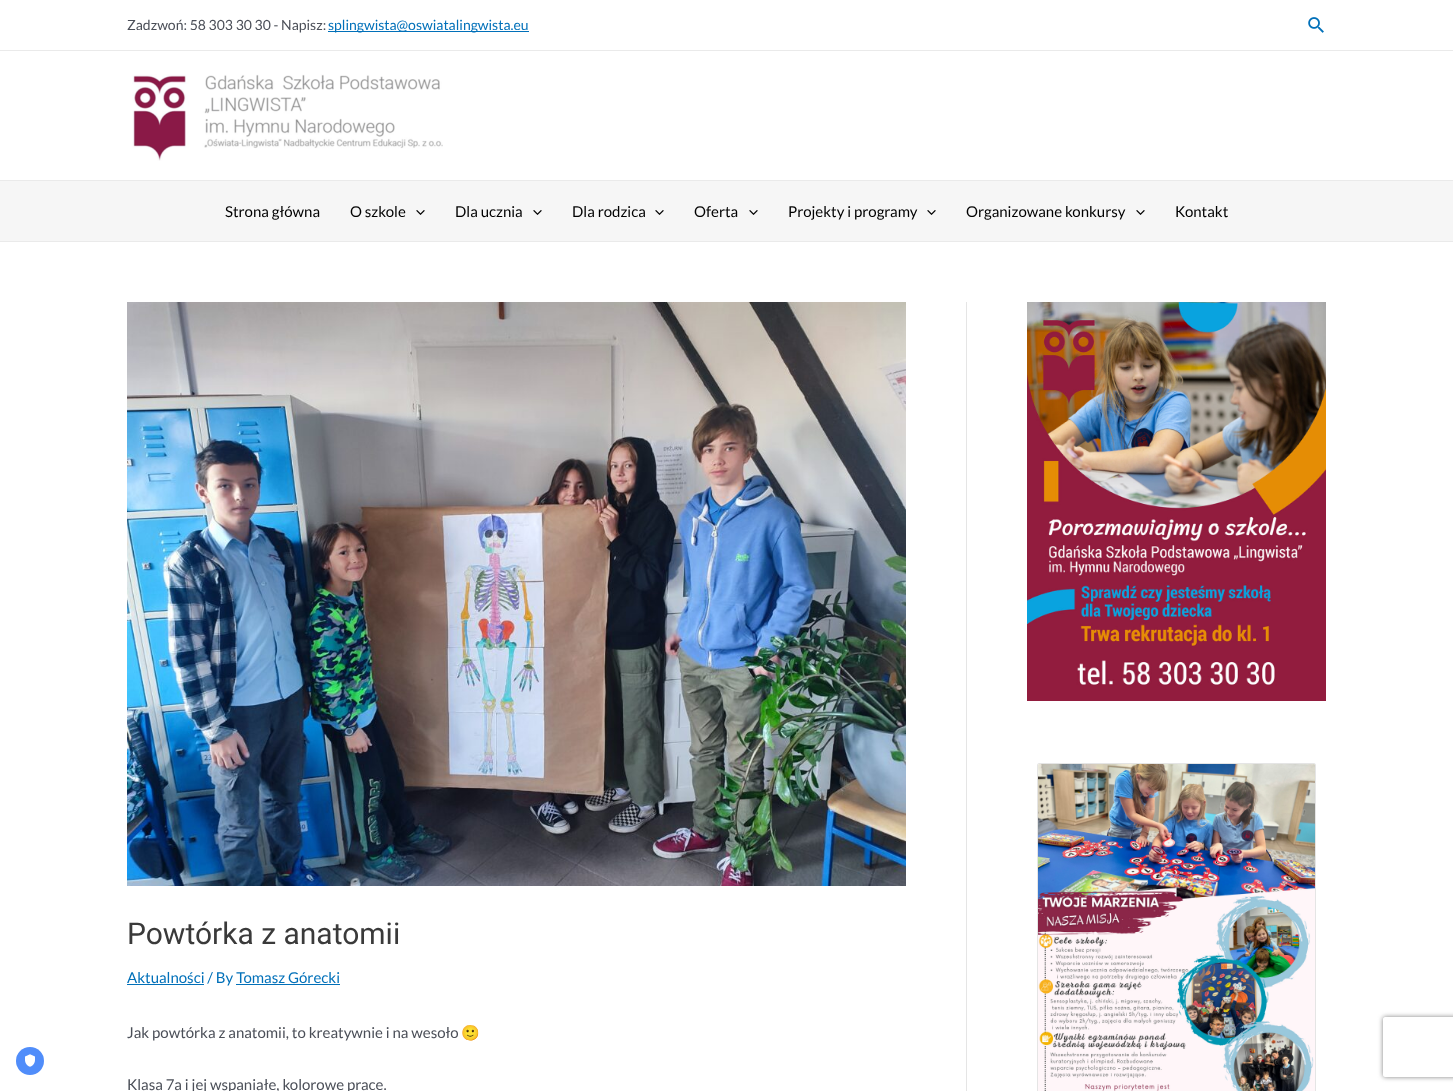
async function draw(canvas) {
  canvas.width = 1453;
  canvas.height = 1091;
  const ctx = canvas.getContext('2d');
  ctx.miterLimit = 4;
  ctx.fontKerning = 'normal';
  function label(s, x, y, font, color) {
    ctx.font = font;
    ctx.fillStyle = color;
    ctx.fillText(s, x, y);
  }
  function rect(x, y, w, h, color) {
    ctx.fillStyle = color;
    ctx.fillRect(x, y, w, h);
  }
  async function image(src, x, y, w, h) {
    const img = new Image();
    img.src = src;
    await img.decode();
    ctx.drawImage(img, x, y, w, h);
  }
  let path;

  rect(0, 0, 1453, 1091, '#fff');
  ctx.fillStyle = '#508dfa';
  ctx.beginPath();
  ctx.arc(30, 1061, 14, 0, 2 * Math.PI);
  ctx.fill();
  await image('assets/img1.png', 25, 1054, 10, 13);
  rect(0, 50, 1453, 1, '#eaeaea');
  label('Zadzwoń: 58 303 30 30 - Napisz:', 127, 30, '14px Lato', '#4b4f58');
  rect(328, 31, 201, 1, '#0170b9');
  label('splingwista@oswiatalingwista.eu', 328, 30, '14px Lato', '#0170b9');
  await image('assets/img2.png', 1308, 17, 16, 16);
  rect(0, 180, 1453, 1, '#eaeaea');
  await image('assets/img3.png', 132, 74, 311, 87);
  rect(0, 181, 1453, 60, '#f6f6f6');
  rect(0, 241, 1453, 1, '#eaeaea');
  label('Strona główna', 225, 217, '15px Lato', '#000');
  label('O szkole', 350, 217, '15px Lato', '#000');
  await image('assets/img4.png', 416, 210, 9, 5);
  label('Dla ucznia', 455, 217, '15px Lato', '#000');
  await image('assets/img4.png', 533, 210, 9, 5);
  label('Dla rodzica', 572, 217, '15px Lato', '#000');
  await image('assets/img4.png', 655, 210, 9, 5);
  label('Oferta', 694, 217, '15px Lato', '#000');
  await image('assets/img4.png', 749, 210, 9, 5);
  label('Projekty i programy', 788, 217, '15px Lato', '#000');
  await image('assets/img4.png', 927, 210, 9, 5);
  label('Organizowane konkursy', 966, 217, '15px Lato', '#000');
  await image('assets/img4.png', 1136, 210, 9, 5);
  label('Kontakt', 1175, 217, '15px Lato', '#000');
  rect(966, 302, 1, 789, '#e5e5e5');
  await image('assets/img5.png', 127, 302, 779, 584);
  label('Powtórka z anatomii', 127, 944, '30px Roboto', '#3a3a3a');
  rect(127, 984, 77, 1, '#0170b9');
  label('Aktualności / By Tomasz Górecki', 127, 983, '15px Lato', '#0170b9');
  rect(236, 984, 104, 1, '#0170b9');
  label('Jak powtórka z anatomii, to kreatywnie i na wesoło', 127, 1038, '15px Lato', '#4b4f58');
  label('🙂', 461, 1038, '15px Noto Color Emoji', '#4b4f58');
  label('Klasa 7a i jej wspaniałe, kolorowe prace.', 127, 1090, '15px Lato', '#4b4f58');
  await image('assets/img6.png', 1027, 302, 299, 399);
  path = new Path2D('M1039 763.5H1314C1315 763.5 1315.5 764 1315.5 765V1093.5H1037.5V765C1037.5 764 1038 763.5 1039 763.5Z');
  ctx.strokeStyle = '#e5e5e5';
  ctx.stroke(path);
  await image('assets/img7.png', 1038, 764, 277, 327);
  ctx.save();
  path = new Path2D('M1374 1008H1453V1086H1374ZM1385 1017H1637C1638 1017 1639 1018 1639 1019V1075C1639 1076 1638 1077 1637 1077H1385C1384 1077 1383 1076 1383 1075V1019C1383 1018 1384 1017 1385 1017Z');
  ctx.clip(path, 'evenodd');
  ctx.fillStyle = '#808080';
  ctx.filter = 'blur(2.5px)';
  ctx.beginPath();
  ctx.roundRect(1383, 1017, 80, 60, 2);
  ctx.fill();
  ctx.filter = 'none';
  ctx.restore();
}

draw(document.querySelector('canvas'));
